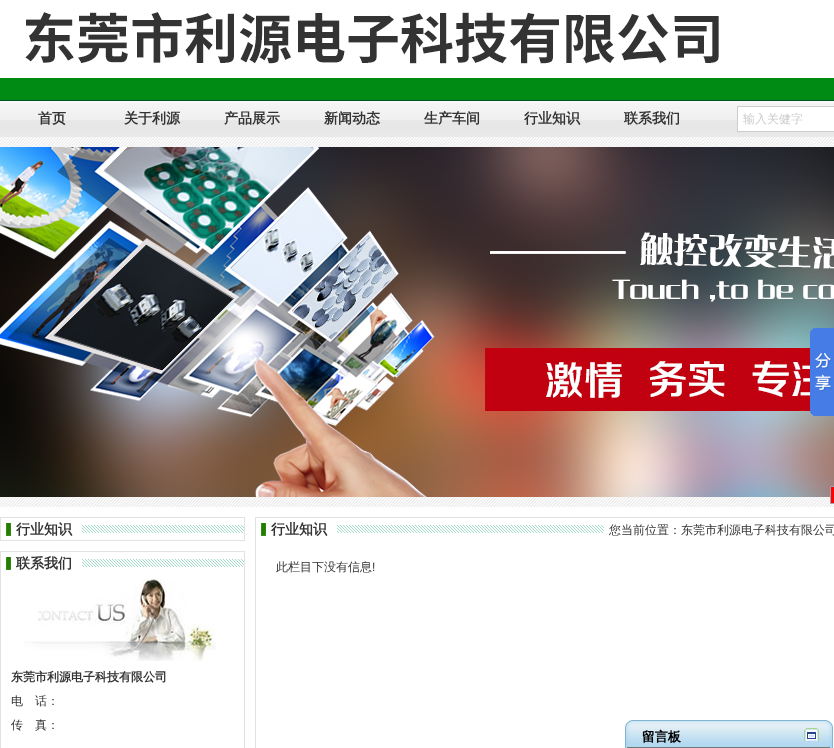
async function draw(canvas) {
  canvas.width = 834;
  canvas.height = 748;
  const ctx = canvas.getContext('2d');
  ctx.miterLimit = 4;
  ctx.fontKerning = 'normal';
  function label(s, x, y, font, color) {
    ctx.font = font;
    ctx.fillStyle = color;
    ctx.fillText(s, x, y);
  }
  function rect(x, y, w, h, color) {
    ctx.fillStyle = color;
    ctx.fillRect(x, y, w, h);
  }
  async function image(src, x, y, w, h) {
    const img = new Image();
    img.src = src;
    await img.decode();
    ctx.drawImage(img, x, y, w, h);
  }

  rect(0, 0, 834, 748, '#fff');
  await image('assets/img1.png', 0, 137, 834, 370);
  rect(0, 78, 834, 22, '#008c14');
  await image('assets/img2.png', 0, 0, 834, 78);
  await image('assets/img3.png', 0, 100, 834, 37);
  label('首页', 38, 123, 'bold 14px WenQuanYi Zen Hei', '#333');
  label('关于利源', 124, 123, 'bold 14px WenQuanYi Zen Hei', '#333');
  label('产品展示', 224, 123, 'bold 14px WenQuanYi Zen Hei', '#333');
  label('新闻动态', 324, 123, 'bold 14px WenQuanYi Zen Hei', '#333');
  label('生产车间', 424, 123, 'bold 14px WenQuanYi Zen Hei', '#333');
  label('行业知识', 524, 123, 'bold 14px WenQuanYi Zen Hei', '#333');
  label('联系我们', 624, 123, 'bold 14px WenQuanYi Zen Hei', '#333');
  ctx.strokeStyle = '#ccc';
  ctx.strokeRect(737.5, 106.5, 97, 25);
  rect(738, 107, 96, 24, '#fff');
  label('输入关健字', 743, 123, '500 12px WenQuanYi Zen Hei', '#ccc');
  await image('assets/img4.png', 0, 147, 834, 350);
  ctx.fillStyle = '#f00';
  ctx.beginPath();
  ctx.rect(830.5, 486.5, 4, 17);
  ctx.fill();
  ctx.strokeStyle = '#9f9fb1';
  ctx.stroke();
  await image('assets/img5.png', 810, 328, 24, 88);
  await image('assets/img6.png', 82, 525, 162, 8);
  rect(0, 517, 245, 1, '#e2e2e2');
  rect(244, 517, 1, 23, '#e2e2e2');
  rect(0, 517, 1, 23, '#e2e2e2');
  await image('assets/img7.png', 6, 523, 5, 13);
  label('行业知识', 16, 534, 'bold 14px WenQuanYi Zen Hei', '#333');
  rect(0, 540, 245, 1, '#e2e2e2');
  await image('assets/img6.png', 82, 559, 162, 8);
  rect(0, 551, 245, 1, '#e2e2e2');
  rect(244, 551, 1, 197, '#e2e2e2');
  rect(0, 551, 1, 197, '#e2e2e2');
  await image('assets/img7.png', 6, 557, 5, 13);
  label('联系我们', 16, 568, 'bold 14px WenQuanYi Zen Hei', '#333');
  await image('assets/img8.png', 24, 579, 192, 82);
  label('东莞市利源电子科技有限公司', 11, 681, 'bold 12px WenQuanYi Zen Hei', '#333');
  label('电　话：', 11, 705, '500 12px WenQuanYi Zen Hei', '#333');
  label('传　真：', 11, 729, '500 12px WenQuanYi Zen Hei', '#333');
  await image('assets/img9.png', 337, 525, 267, 8);
  rect(255, 517, 579, 1, '#e2e2e2');
  rect(255, 517, 1, 231, '#e2e2e2');
  await image('assets/img7.png', 261, 523, 5, 13);
  label('行业知识', 271, 534, 'bold 14px WenQuanYi Zen Hei', '#333');
  label('您当前位置：东莞市利源电子科技有限公司', 609, 534, '500 12px WenQuanYi Zen Hei', '#333');
  label('此栏目下没有信息', 276, 571, '500 12px WenQuanYi Zen Hei', '#333');
  label('!', 372, 571, '12px Liberation Sans', '#333');
  await image('assets/img10.png', 625, 720, 208, 28);
  await image('assets/img11.png', 804, 728, 15, 13);
}

draw(document.querySelector('canvas'));
